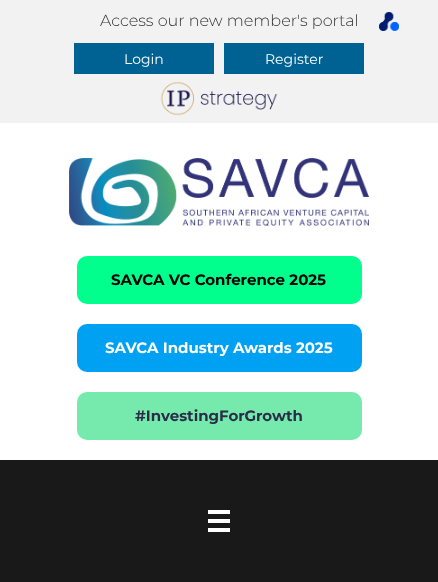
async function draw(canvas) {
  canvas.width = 438;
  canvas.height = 582;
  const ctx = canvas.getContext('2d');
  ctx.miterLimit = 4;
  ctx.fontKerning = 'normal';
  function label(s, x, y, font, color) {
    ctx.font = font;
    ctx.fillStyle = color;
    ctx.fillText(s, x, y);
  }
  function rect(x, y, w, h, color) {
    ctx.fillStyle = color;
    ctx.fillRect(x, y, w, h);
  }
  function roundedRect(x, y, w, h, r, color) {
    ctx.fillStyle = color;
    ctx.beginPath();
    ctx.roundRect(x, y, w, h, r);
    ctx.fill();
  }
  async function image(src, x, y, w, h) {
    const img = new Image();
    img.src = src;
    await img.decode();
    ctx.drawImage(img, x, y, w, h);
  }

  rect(0, 0, 438, 582, '#f2f2f2');
  label('Access our new member\'s portal', 100, 26, '300 16px Montserrat', '#333');
  await image('assets/img1.png', 379, 12, 20, 19);
  rect(74, 43, 140, 31, '#006293');
  label('Login', 124, 64, '14px Montserrat', '#fff');
  rect(224, 43, 140, 31, '#006293');
  label('Register', 265, 64, '14px Montserrat', '#fff');
  await image('assets/img2.png', 160, 81, 118, 35);
  rect(0, 123, 438, 337, '#fff');
  await image('assets/img3.png', 69, 158, 300, 68);
  roundedRect(77, 256, 285, 48, 10, '#00ff8c');
  label('SAVCA VC Conference 2025', 111, 285, 'bold 15px Montserrat', '#000');
  roundedRect(77, 324, 285, 48, 10, '#00a1f2');
  label('SAVCA Industry Awards 2025', 105, 353, 'bold 15px Montserrat', '#fff');
  roundedRect(77, 392, 285, 48, 10, '#76eaad');
  label('#InvestingForGrowth', 135, 421, 'bold 15px Montserrat', '#2a2d48');
  rect(0, 460, 438, 122, '#191919');
  rect(208, 510, 22, 4, '#fff');
  rect(208, 519, 22, 4, '#fff');
  rect(208, 528, 22, 4, '#fff');
}

draw(document.querySelector('canvas'));
